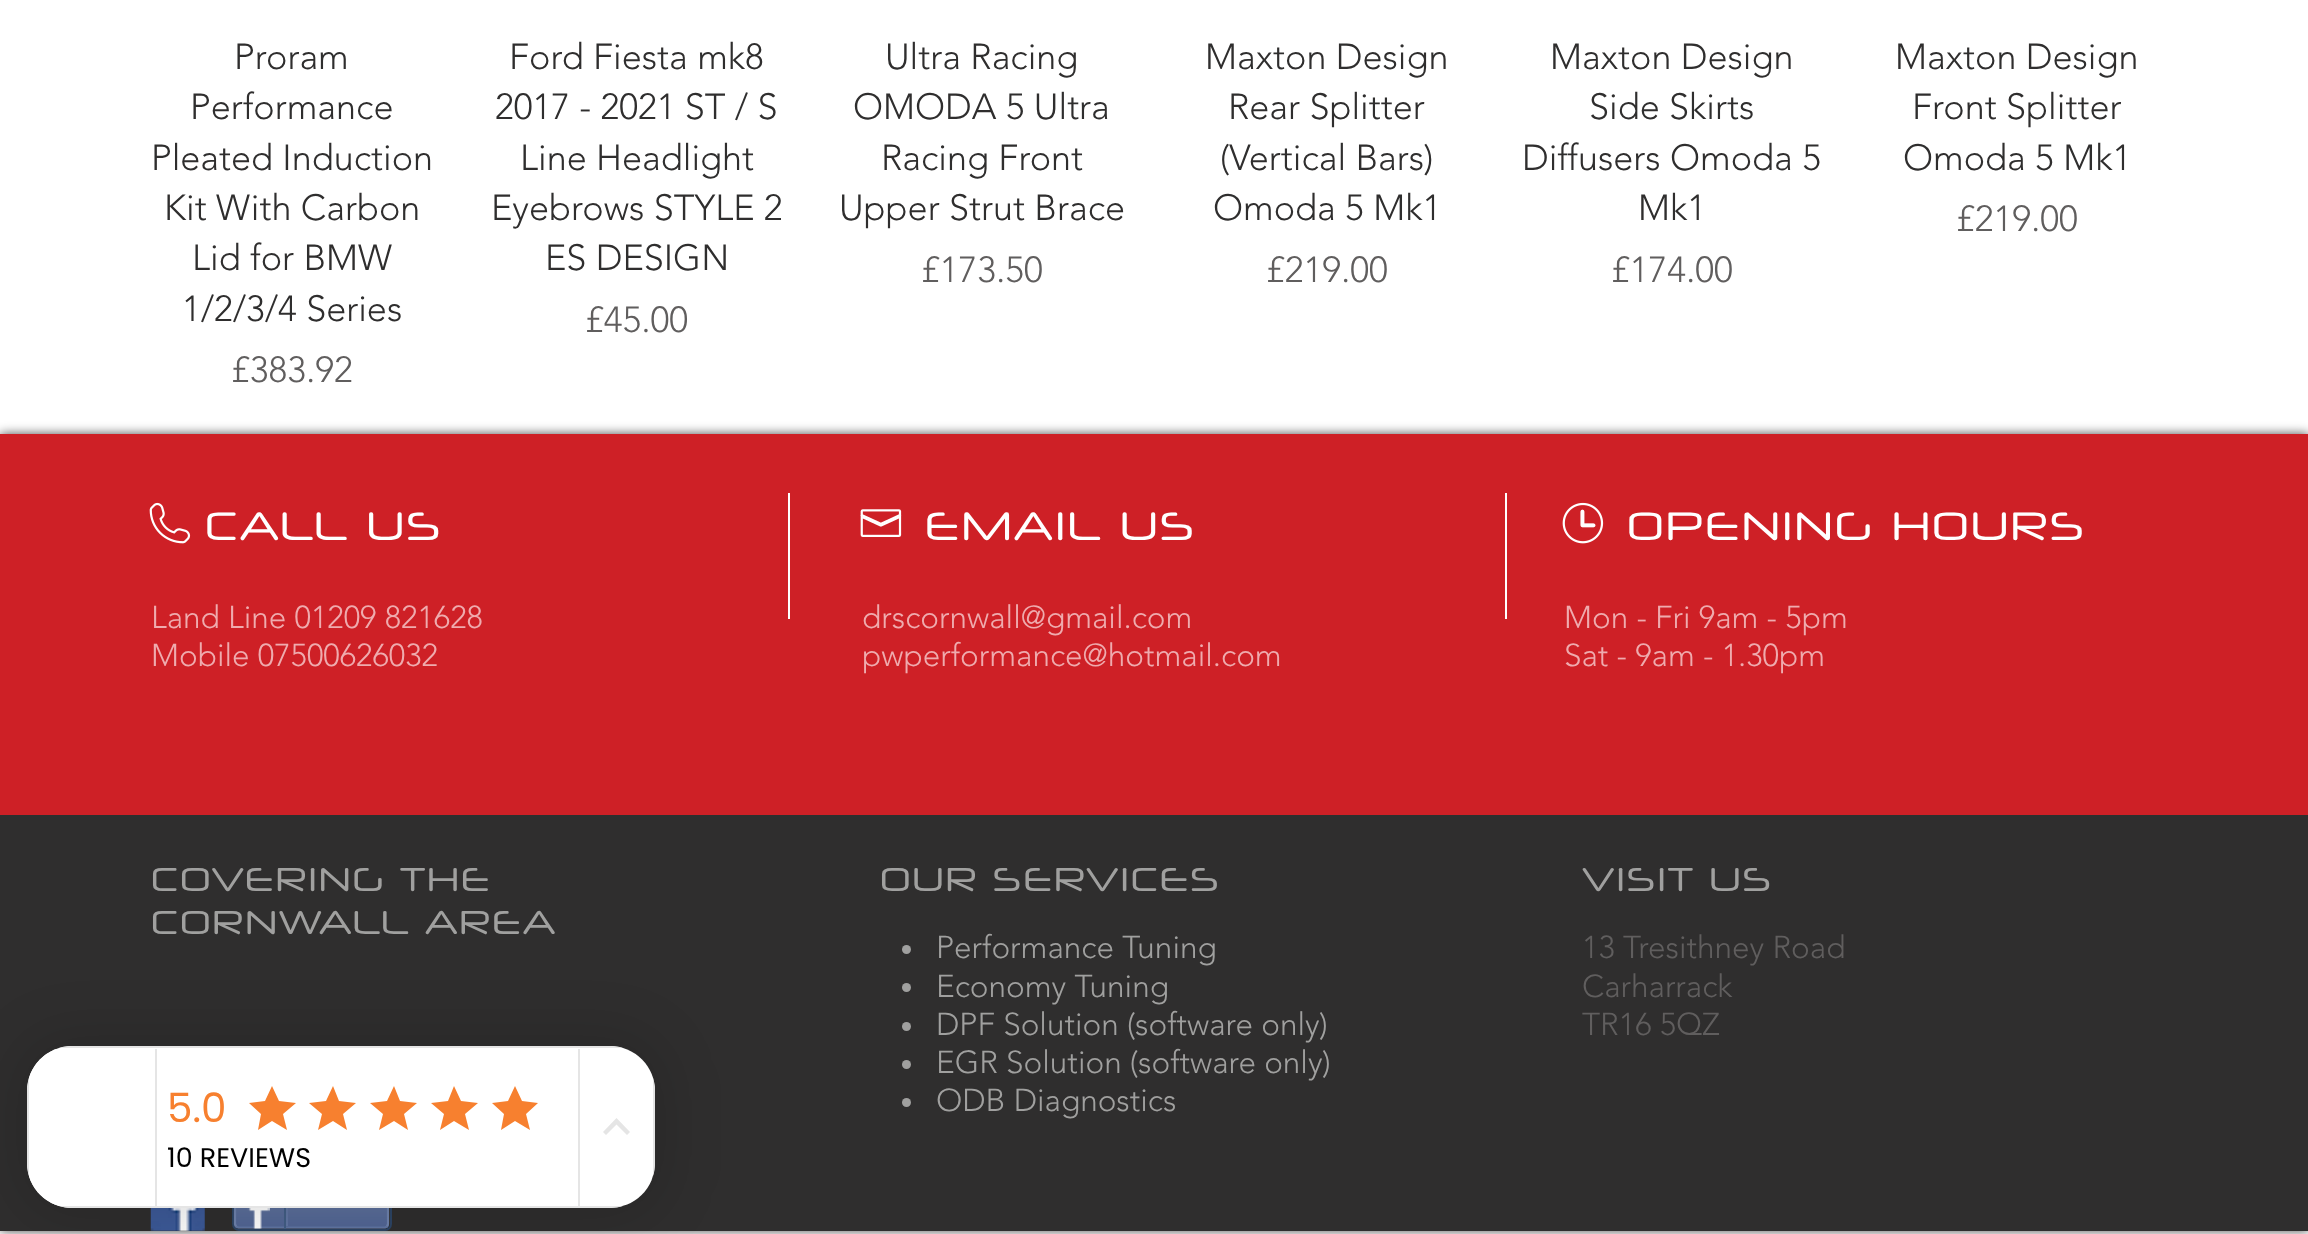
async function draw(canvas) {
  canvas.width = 2308;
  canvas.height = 1234;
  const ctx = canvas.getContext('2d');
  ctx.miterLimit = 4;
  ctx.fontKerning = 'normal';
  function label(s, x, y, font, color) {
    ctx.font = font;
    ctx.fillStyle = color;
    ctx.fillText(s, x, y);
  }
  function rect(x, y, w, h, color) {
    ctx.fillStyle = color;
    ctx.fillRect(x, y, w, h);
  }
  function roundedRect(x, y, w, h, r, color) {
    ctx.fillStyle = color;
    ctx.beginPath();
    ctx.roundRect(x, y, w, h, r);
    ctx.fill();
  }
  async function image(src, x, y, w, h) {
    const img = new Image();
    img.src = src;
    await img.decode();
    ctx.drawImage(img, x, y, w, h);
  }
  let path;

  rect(0, 0, 2308, 1234, '#fff');
  label('Proram', 234, 69, '300 36px "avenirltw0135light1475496"', '#2f2e2e');
  label('Performance', 190, 119, '300 36px "avenirltw0135light1475496"', '#2f2e2e');
  label('Pleated Induction', 151, 170, '300 36px "avenirltw0135light1475496"', '#2f2e2e');
  label('Kit With Carbon', 164, 220, '300 36px "avenirltw0135light1475496"', '#2f2e2e');
  label('Lid for BMW', 192, 270, '300 36px "avenirltw0135light1475496"', '#2f2e2e');
  label('1/2/3/4 Series', 182, 321, '300 36px "avenirltw0135light1475496"', '#2f2e2e');
  label('£383.92', 231, 382, '300 36px "avenirltw0135light1475496"', '#605e5e');
  label('Ford Fiesta mk8', 509, 69, '300 36px "avenirltw0135light1475496"', '#2f2e2e');
  label('2017 - 2021 ST / S', 495, 119, '300 36px "avenirltw0135light1475496"', '#2f2e2e');
  label('Line Headlight', 520, 170, '300 36px "avenirltw0135light1475496"', '#2f2e2e');
  label('Eyebrows STYLE 2', 491, 220, '300 36px "avenirltw0135light1475496"', '#2f2e2e');
  label('ES DESIGN', 545, 270, '300 36px "avenirltw0135light1475496"', '#2f2e2e');
  label('£45.00', 585, 332, '300 36px "avenirltw0135light1475496"', '#605e5e');
  label('Ultra Racing', 885, 69, '300 36px "avenirltw0135light1475496"', '#2f2e2e');
  label('OMODA 5 Ultra', 853, 119, '300 36px "avenirltw0135light1475496"', '#2f2e2e');
  label('Racing Front', 881, 170, '300 36px "avenirltw0135light1475496"', '#2f2e2e');
  label('Upper Strut Brace', 839, 220, '300 36px "avenirltw0135light1475496"', '#2f2e2e');
  label('£173.50', 921, 282, '300 36px "avenirltw0135light1475496"', '#605e5e');
  label('Maxton Design', 1205, 69, '300 36px "avenirltw0135light1475496"', '#2f2e2e');
  label('Rear Splitter', 1228, 119, '300 36px "avenirltw0135light1475496"', '#2f2e2e');
  label('(Vertical Bars)', 1220, 170, '300 36px "avenirltw0135light1475496"', '#2f2e2e');
  label('Omoda 5 Mk1', 1213, 220, '300 36px "avenirltw0135light1475496"', '#2f2e2e');
  label('£219.00', 1266, 282, '300 36px "avenirltw0135light1475496"', '#605e5e');
  label('Maxton Design', 1550, 69, '300 36px "avenirltw0135light1475496"', '#2f2e2e');
  label('Side Skirts', 1589, 119, '300 36px "avenirltw0135light1475496"', '#2f2e2e');
  label('Diffusers Omoda 5', 1522, 170, '300 36px "avenirltw0135light1475496"', '#2f2e2e');
  label('Mk1', 1638, 220, '300 36px "avenirltw0135light1475496"', '#2f2e2e');
  label('£174.00', 1611, 282, '300 36px "avenirltw0135light1475496"', '#605e5e');
  label('Maxton Design', 1895, 69, '300 36px "avenirltw0135light1475496"', '#2f2e2e');
  label('Front Splitter', 1912, 119, '300 36px "avenirltw0135light1475496"', '#2f2e2e');
  label('Omoda 5 Mk1', 1903, 170, '300 36px "avenirltw0135light1475496"', '#2f2e2e');
  label('£219.00', 1956, 231, '300 36px "avenirltw0135light1475496"', '#605e5e');
  ctx.fillStyle = '#000000b3';
  ctx.filter = 'blur(5.5px)';
  ctx.beginPath();
  ctx.rect(0, 434, 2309, 797);
  ctx.fill();
  ctx.filter = 'none';
  rect(0, 815, 2308, 416, '#2f2e2e');
  rect(0, 434, 2308, 381, '#ce2026');
  await image('assets/img1.png', 149, 502, 42, 42);
  ctx.letterSpacing = '2px';
  label('CALL US', 205, 540, '40.5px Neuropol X', '#fff');
  rect(788, 493, 2, 126, '#fff');
  await image('assets/img2.png', 860, 509, 42, 28);
  label('EMAIL US', 925, 540, '40.5px Neuropol X', '#fff');
  rect(1505, 493, 2, 126, '#fff');
  await image('assets/img3.png', 1562, 502, 42, 42);
  label('OPENING HOURS', 1627, 540, '40.5px Neuropol X', '#fff');
  ctx.letterSpacing = '0px';
  label('Land Line 01209 821628', 151, 628, '300 31.5px "avenirltw0135light1475496"', '#efabae');
  label('Mobile 07500626032', 151, 666, '300 31.5px "avenirltw0135light1475496"', '#efabae');
  label('drscornwall@gmail.com', 862, 628, '300 31.5px "avenirltw0135light1475496"', '#efabae');
  label('pwperformance@hotmail.com', 862, 666, '300 31.5px "avenirltw0135light1475496"', '#efabae');
  label('Mon - Fri 9am - 5pm', 1564, 628, '300 31.5px "avenirltw0135light1475496"', '#efabae');
  label('Sat - 9am - 1.30pm', 1564, 666, '300 31.5px "avenirltw0135light1475496"', '#efabae');
  ctx.letterSpacing = '1.75px';
  label('COVERING THE', 151, 891, '33.75px Neuropol X', '#a0a09f');
  label('CORNWALL AREA', 151, 934, '33.75px Neuropol X', '#a0a09f');
  label('OUR SERVICES', 880, 891, '33.75px Neuropol X', '#a0a09f');
  label('VISIT US', 1582, 891, '33.75px Neuropol X', '#a0a09f');
  ctx.beginPath();
  ctx.arc(906.5, 949.5, 4.5, 0, 2 * Math.PI);
  ctx.fill();
  ctx.letterSpacing = '0px';
  label('Performance Tuning', 936, 958, '300 31.5px "avenirltw0135light1475496"', '#a0a09f');
  ctx.beginPath();
  ctx.arc(906.5, 987.5, 4.5, 0, 2 * Math.PI);
  ctx.fill();
  label('Economy Tuning', 936, 997, '300 31.5px "avenirltw0135light1475496"', '#a0a09f');
  ctx.beginPath();
  ctx.arc(906.5, 1026.5, 4.5, 0, 2 * Math.PI);
  ctx.fill();
  label('DPF Solution (software only)', 936, 1035, '300 31.5px "avenirltw0135light1475496"', '#a0a09f');
  ctx.beginPath();
  ctx.arc(906.5, 1064.5, 4.5, 0, 2 * Math.PI);
  ctx.fill();
  label('EGR Solution (software only)', 936, 1073, '300 31.5px "avenirltw0135light1475496"', '#a0a09f');
  ctx.beginPath();
  ctx.arc(906.5, 1102.5, 4.5, 0, 2 * Math.PI);
  ctx.fill();
  label('ODB Diagnostics', 936, 1111, '300 31.5px "avenirltw0135light1475496"', '#a0a09f');
  label('13 Tresithney Road', 1582, 958, '300 31.5px "avenirltw0135light1475496"', '#605e5e');
  label('Carharrack', 1582, 997, '300 31.5px "avenirltw0135light1475496"', '#605e5e');
  label('TR16 5QZ', 1582, 1035, '300 31.5px "avenirltw0135light1475496"', '#605e5e');
  await image('assets/img4.png', 150, 1208, 55, 23);
  ctx.beginPath();
  ctx.roundRect(233, 1178, 158, 52, 6);
  ctx.strokeStyle = '#2d4565';
  ctx.lineWidth = 2;
  ctx.stroke();
  await image('assets/img5.png', 234, 1208, 156, 21);
  path = new Path2D('M387 1181L388 1183.5V1224L387 1226.5');
  ctx.strokeStyle = '#6f83ad';
  ctx.lineWidth = 2.2;
  ctx.stroke(path);
  path = new Path2D('M387 1226.5L385 1227.5H238.5L236 1226.5');
  ctx.strokeStyle = '#6176a3';
  ctx.stroke(path);
  path = new Path2D('M236 1226.5L235 1224V1183.5L236 1181');
  ctx.strokeStyle = '#6f83ad';
  ctx.stroke(path);
  await image('assets/img6.png', 247, 1208, 23, 21);
  rect(284, 1208, 2, 21, '#425e85');
  rect(286, 1208, 2, 18, '#6176a3');
  ctx.fillStyle = '#0000001f';
  ctx.filter = 'blur(27px)';
  ctx.beginPath();
  ctx.roundRect(14, 1033, 654, 189, 59);
  ctx.fill();
  ctx.filter = 'none';
  roundedRect(27, 1046, 628, 162, 45, '#fff');
  ctx.fillStyle = '#e5e5e5';
  path = new Path2D('M27 1091V1163C27 1168 28 1172 29 1176V1078C28 1082 27 1086 27 1091ZM72 1046C67 1046 63 1047 59 1048H623C619 1047 615 1046 610 1046ZM655 1091C655 1086 654 1082 653 1078V1176C654 1172 655 1168 655 1163ZM610 1208C615 1208 619 1207 623 1206H59C63 1207 67 1208 72 1208Z');
  ctx.fill(path, 'evenodd');
  ctx.save();
  ctx.beginPath();
  ctx.roundRect(27, 1046, 628, 162, 45);
  ctx.clip();
  ctx.fillStyle = '#fff';
  ctx.beginPath();
  ctx.roundRect(29, 1049, 129, 157, [11, 0, 0, 11]);
  ctx.fill();
  ctx.restore();
  rect(155, 1049, 2, 157, '#e5e5e5');
  rect(578, 1049, 2, 157, '#e5e5e5');
  label('5.0', 167, 1122, '40.5px Poppins', '#f7802f');
  path = new Path2D('M272 1121L287 1130L283 1114L296 1103L279 1101L272 1086L265 1101L249 1103L261 1114L258 1130Z');
  ctx.fill(path);
  path = new Path2D('M333 1121L347 1130L343 1114L356 1103L339 1101L333 1086L326 1101L309 1103L322 1114L318 1130Z');
  ctx.fill(path);
  path = new Path2D('M394 1121L408 1130L404 1114L417 1103L400 1101L394 1086L387 1101L370 1103L383 1114L379 1130Z');
  ctx.fill(path);
  path = new Path2D('M454 1121L469 1130L465 1114L478 1103L461 1101L454 1086L448 1101L431 1103L444 1114L440 1130Z');
  ctx.fill(path);
  path = new Path2D('M515 1121L530 1130L526 1114L538 1103L522 1101L515 1086L508 1101L492 1103L504 1114L501 1130Z');
  ctx.fill(path);
  label('10 REVIEWS', 167, 1167, '27px Poppins', '#000');
  ctx.fillStyle = '#e5e5e5';
  path = new Path2D('M606 1135L616.5 1124.5L627 1135L630 1132L616.5 1118L603 1132Z');
  ctx.fill(path);
}

draw(document.querySelector('canvas'));
